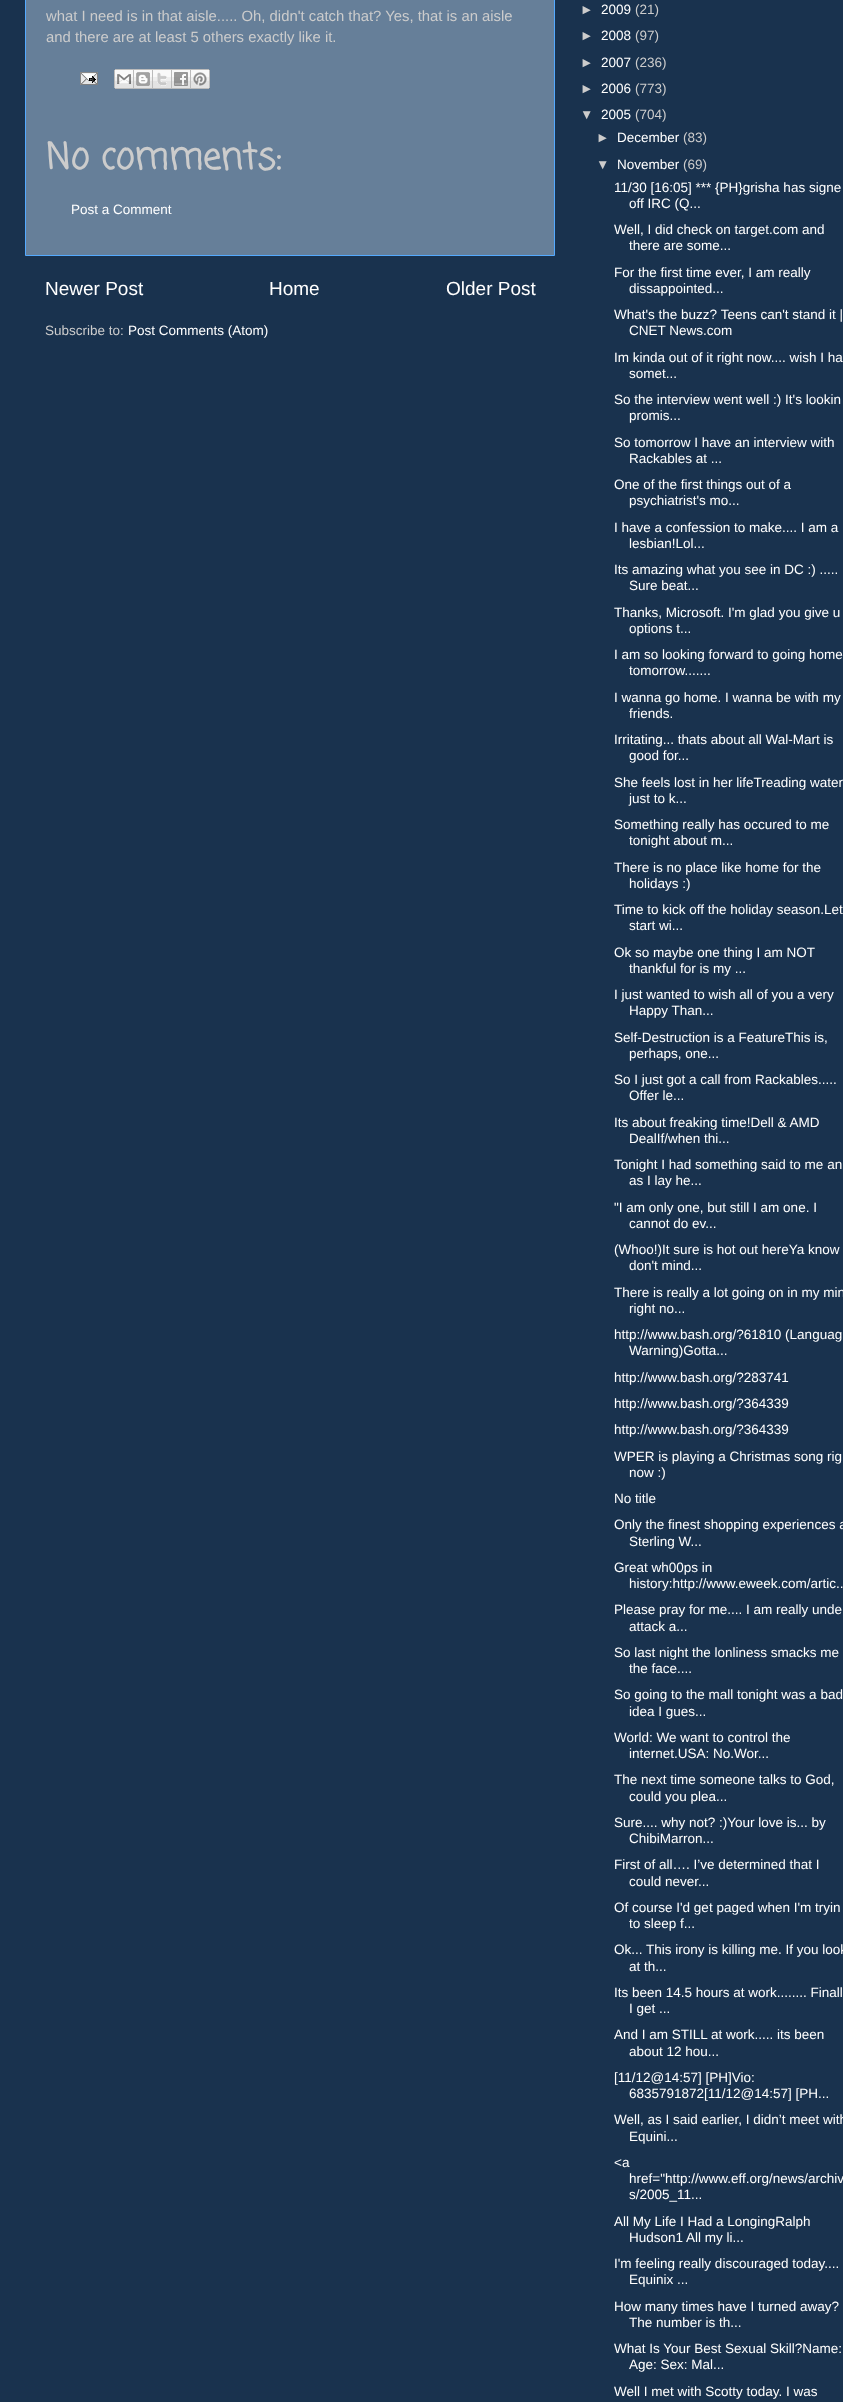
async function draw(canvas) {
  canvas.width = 843;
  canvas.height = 2402;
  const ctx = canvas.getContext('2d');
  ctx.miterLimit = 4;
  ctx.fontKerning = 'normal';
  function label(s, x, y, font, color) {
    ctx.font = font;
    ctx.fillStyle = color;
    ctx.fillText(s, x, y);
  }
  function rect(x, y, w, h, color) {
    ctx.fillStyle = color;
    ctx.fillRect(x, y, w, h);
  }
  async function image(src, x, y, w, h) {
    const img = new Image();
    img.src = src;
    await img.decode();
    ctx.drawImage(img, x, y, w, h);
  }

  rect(0, 0, 843, 2402, '#19324e');
  ctx.fillStyle = '#667f99';
  ctx.beginPath();
  ctx.rect(25.5, -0.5, 529, 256);
  ctx.fill();
  ctx.strokeStyle = '#54aaff';
  ctx.stroke();
  label('what I need is in that aisle..... Oh, didn\'t catch that? Yes, that is an aisle', 46, 21, '14.85px Liberation Sans', '#ccc');
  label('and there are at least 5 others exactly like it.', 46, 42, '14.85px Liberation Sans', '#ccc');
  await image('assets/img1.png', 80, 72, 18, 13);
  await image('assets/img2.png', 114, 69, 20, 20);
  await image('assets/img3.png', 134, 69, 19, 20);
  await image('assets/img4.png', 153, 69, 19, 20);
  await image('assets/img5.png', 172, 69, 19, 20);
  await image('assets/img6.png', 191, 69, 19, 20);
  label('No comments:', 46, 169, 'bold 36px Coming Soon', '#ccc');
  label('Post a Comment', 71, 214, '13.5px Liberation Sans', '#fff');
  label('Newer Post', 45, 295, '19px Liberation Sans', '#fff');
  label('Home', 269, 295, '19px Liberation Sans', '#fff');
  label('Older Post', 446, 295, '19px Liberation Sans', '#fff');
  label('Subscribe to:', 45, 335, '13.5px Liberation Sans', '#ccc');
  label('Post Comments (Atom)', 128, 335, '13.5px Liberation Sans', '#fff');
  label('►', 580, 14, '13.5px Liberation Sans', '#ccc');
  label('2009', 601, 14, '13.5px Liberation Sans', '#fff');
  label('(21)', 635, 14, '13.5px Liberation Sans', '#ccc');
  label('►', 580, 40, '13.5px Liberation Sans', '#ccc');
  label('2008', 601, 40, '13.5px Liberation Sans', '#fff');
  label('(97)', 635, 40, '13.5px Liberation Sans', '#ccc');
  label('►', 580, 67, '13.5px Liberation Sans', '#ccc');
  label('2007', 601, 67, '13.5px Liberation Sans', '#fff');
  label('(236)', 635, 67, '13.5px Liberation Sans', '#ccc');
  label('►', 580, 93, '13.5px Liberation Sans', '#ccc');
  label('2006', 601, 93, '13.5px Liberation Sans', '#fff');
  label('(773)', 635, 93, '13.5px Liberation Sans', '#ccc');
  label('▼', 580, 119, '13.5px Liberation Sans', '#ccc');
  label('2005', 601, 119, '13.5px Liberation Sans', '#fff');
  label('(704)', 635, 119, '13.5px Liberation Sans', '#ccc');
  label('►', 596, 142, '13.5px Liberation Sans', '#ccc');
  label('December', 617, 142, '13.5px Liberation Sans', '#fff');
  label('(83)', 683, 142, '13.5px Liberation Sans', '#ccc');
  label('▼', 596, 169, '13.5px Liberation Sans', '#ccc');
  label('November', 617, 169, '13.5px Liberation Sans', '#fff');
  label('(69)', 683, 169, '13.5px Liberation Sans', '#ccc');
  label('11/30 [16:05] *** {PH}grisha has signe', 614, 192, '13.5px Liberation Sans', '#fff');
  label('off IRC (Q...', 629, 208, '13.5px Liberation Sans', '#fff');
  label('Well, I did check on target.com and', 614, 234, '13.5px Liberation Sans', '#fff');
  label('there are some...', 629, 250, '13.5px Liberation Sans', '#fff');
  label('For the first time ever, I am really', 614, 277, '13.5px Liberation Sans', '#fff');
  label('dissappointed...', 629, 293, '13.5px Liberation Sans', '#fff');
  label('What\'s the buzz? Teens can\'t stand it |', 614, 319, '13.5px Liberation Sans', '#fff');
  label('CNET News.com', 629, 335, '13.5px Liberation Sans', '#fff');
  label('Im kinda out of it right now.... wish I ha', 614, 362, '13.5px Liberation Sans', '#fff');
  label('somet...', 629, 378, '13.5px Liberation Sans', '#fff');
  label('So the interview went well :) It\'s lookin', 614, 404, '13.5px Liberation Sans', '#fff');
  label('promis...', 629, 420, '13.5px Liberation Sans', '#fff');
  label('So tomorrow I have an interview with', 614, 447, '13.5px Liberation Sans', '#fff');
  label('Rackables at ...', 629, 463, '13.5px Liberation Sans', '#fff');
  label('One of the first things out of a', 614, 489, '13.5px Liberation Sans', '#fff');
  label('psychiatrist\'s mo...', 629, 505, '13.5px Liberation Sans', '#fff');
  label('I have a confession to make.... I am a', 614, 532, '13.5px Liberation Sans', '#fff');
  label('lesbian!Lol...', 629, 548, '13.5px Liberation Sans', '#fff');
  label('Its amazing what you see in DC :) .....', 614, 574, '13.5px Liberation Sans', '#fff');
  label('Sure beat...', 629, 590, '13.5px Liberation Sans', '#fff');
  label('Thanks, Microsoft. I\'m glad you give u', 614, 617, '13.5px Liberation Sans', '#fff');
  label('options t...', 629, 633, '13.5px Liberation Sans', '#fff');
  label('I am so looking forward to going home', 614, 659, '13.5px Liberation Sans', '#fff');
  label('tomorrow.......', 629, 675, '13.5px Liberation Sans', '#fff');
  label('I wanna go home. I wanna be with my', 614, 702, '13.5px Liberation Sans', '#fff');
  label('friends.', 629, 718, '13.5px Liberation Sans', '#fff');
  label('Irritating... thats about all Wal-Mart is', 614, 744, '13.5px Liberation Sans', '#fff');
  label('good for...', 629, 760, '13.5px Liberation Sans', '#fff');
  label('She feels lost in her lifeTreading water', 614, 787, '13.5px Liberation Sans', '#fff');
  label('just to k...', 629, 803, '13.5px Liberation Sans', '#fff');
  label('Something really has occured to me', 614, 829, '13.5px Liberation Sans', '#fff');
  label('tonight about m...', 629, 845, '13.5px Liberation Sans', '#fff');
  label('There is no place like home for the', 614, 872, '13.5px Liberation Sans', '#fff');
  label('holidays :)', 629, 888, '13.5px Liberation Sans', '#fff');
  label('Time to kick off the holiday season.Let', 614, 914, '13.5px Liberation Sans', '#fff');
  label('start wi...', 629, 930, '13.5px Liberation Sans', '#fff');
  label('Ok so maybe one thing I am NOT', 614, 957, '13.5px Liberation Sans', '#fff');
  label('thankful for is my ...', 629, 973, '13.5px Liberation Sans', '#fff');
  label('I just wanted to wish all of you a very', 614, 999, '13.5px Liberation Sans', '#fff');
  label('Happy Than...', 629, 1015, '13.5px Liberation Sans', '#fff');
  label('Self-Destruction is a FeatureThis is,', 614, 1042, '13.5px Liberation Sans', '#fff');
  label('perhaps, one...', 629, 1058, '13.5px Liberation Sans', '#fff');
  label('So I just got a call from Rackables.....', 614, 1084, '13.5px Liberation Sans', '#fff');
  label('Offer le...', 629, 1100, '13.5px Liberation Sans', '#fff');
  label('Its about freaking time!Dell & AMD', 614, 1127, '13.5px Liberation Sans', '#fff');
  label('DealIf/when thi...', 629, 1143, '13.5px Liberation Sans', '#fff');
  label('Tonight I had something said to me an', 614, 1169, '13.5px Liberation Sans', '#fff');
  label('as I lay he...', 629, 1185, '13.5px Liberation Sans', '#fff');
  label('"I am only one, but still I am one. I', 614, 1212, '13.5px Liberation Sans', '#fff');
  label('cannot do ev...', 629, 1228, '13.5px Liberation Sans', '#fff');
  label('(Whoo!)It sure is hot out hereYa know', 614, 1254, '13.5px Liberation Sans', '#fff');
  label('don\'t mind...', 629, 1270, '13.5px Liberation Sans', '#fff');
  label('There is really a lot going on in my min', 614, 1297, '13.5px Liberation Sans', '#fff');
  label('right no...', 629, 1313, '13.5px Liberation Sans', '#fff');
  label('http://www.bash.org/?61810 (Languag', 614, 1339, '13.5px Liberation Sans', '#fff');
  label('Warning)Gotta...', 629, 1355, '13.5px Liberation Sans', '#fff');
  label('http://www.bash.org/?283741', 614, 1382, '13.5px Liberation Sans', '#fff');
  label('http://www.bash.org/?364339', 614, 1408, '13.5px Liberation Sans', '#fff');
  label('http://www.bash.org/?364339', 614, 1434, '13.5px Liberation Sans', '#fff');
  label('WPER is playing a Christmas song rig', 614, 1461, '13.5px Liberation Sans', '#fff');
  label('now :)', 629, 1477, '13.5px Liberation Sans', '#fff');
  label('No title', 614, 1503, '13.5px Liberation Sans', '#fff');
  label('Only the finest shopping experiences a', 614, 1529, '13.5px Liberation Sans', '#fff');
  label('Sterling W...', 629, 1546, '13.5px Liberation Sans', '#fff');
  label('Great wh00ps in', 614, 1572, '13.5px Liberation Sans', '#fff');
  label('history:http://www.eweek.com/artic..', 629, 1588, '13.5px Liberation Sans', '#fff');
  label('Please pray for me.... I am really unde', 614, 1614, '13.5px Liberation Sans', '#fff');
  label('attack a...', 629, 1631, '13.5px Liberation Sans', '#fff');
  label('So last night the lonliness smacks me', 614, 1657, '13.5px Liberation Sans', '#fff');
  label('the face....', 629, 1673, '13.5px Liberation Sans', '#fff');
  label('So going to the mall tonight was a bad', 614, 1699, '13.5px Liberation Sans', '#fff');
  label('idea I gues...', 629, 1716, '13.5px Liberation Sans', '#fff');
  label('World: We want to control the', 614, 1742, '13.5px Liberation Sans', '#fff');
  label('internet.USA: No.Wor...', 629, 1758, '13.5px Liberation Sans', '#fff');
  label('The next time someone talks to God,', 614, 1784, '13.5px Liberation Sans', '#fff');
  label('could you plea...', 629, 1801, '13.5px Liberation Sans', '#fff');
  label('Sure.... why not? :)Your love is... by', 614, 1827, '13.5px Liberation Sans', '#fff');
  label('ChibiMarron...', 629, 1843, '13.5px Liberation Sans', '#fff');
  label('First of all…. I’ve determined that I', 614, 1869, '13.5px Liberation Sans', '#fff');
  label('could never...', 629, 1886, '13.5px Liberation Sans', '#fff');
  label('Of course I\'d get paged when I\'m tryin', 614, 1912, '13.5px Liberation Sans', '#fff');
  label('to sleep f...', 629, 1928, '13.5px Liberation Sans', '#fff');
  label('Ok... This irony is killing me. If you look', 614, 1954, '13.5px Liberation Sans', '#fff');
  label('at th...', 629, 1971, '13.5px Liberation Sans', '#fff');
  label('Its been 14.5 hours at work........ Finall', 614, 1997, '13.5px Liberation Sans', '#fff');
  label('I get ...', 629, 2013, '13.5px Liberation Sans', '#fff');
  label('And I am STILL at work..... its been', 614, 2039, '13.5px Liberation Sans', '#fff');
  label('about 12 hou...', 629, 2056, '13.5px Liberation Sans', '#fff');
  label('[11/12@14:57] [PH]Vio:', 614, 2082, '13.5px Liberation Sans', '#fff');
  label('6835791872[11/12@14:57] [PH...', 629, 2098, '13.5px Liberation Sans', '#fff');
  label('Well, as I said earlier, I didn’t meet with', 614, 2124, '13.5px Liberation Sans', '#fff');
  label('Equini...', 629, 2141, '13.5px Liberation Sans', '#fff');
  label('<a', 614, 2167, '13.5px Liberation Sans', '#fff');
  label('href="http://www.eff.org/news/archiv', 629, 2183, '13.5px Liberation Sans', '#fff');
  label('s/2005_11...', 629, 2199, '13.5px Liberation Sans', '#fff');
  label('All My Life I Had a LongingRalph', 614, 2226, '13.5px Liberation Sans', '#fff');
  label('Hudson1 All my li...', 629, 2242, '13.5px Liberation Sans', '#fff');
  label('I\'m feeling really discouraged today....', 614, 2268, '13.5px Liberation Sans', '#fff');
  label('Equinix ...', 629, 2284, '13.5px Liberation Sans', '#fff');
  label('How many times have I turned away?', 614, 2311, '13.5px Liberation Sans', '#fff');
  label('The number is th...', 629, 2327, '13.5px Liberation Sans', '#fff');
  label('What Is Your Best Sexual Skill?Name:', 614, 2353, '13.5px Liberation Sans', '#fff');
  label('Age: Sex: Mal...', 629, 2369, '13.5px Liberation Sans', '#fff');
  label('Well I met with Scotty today. I was', 614, 2396, '13.5px Liberation Sans', '#fff');
}

draw(document.querySelector('canvas'));
